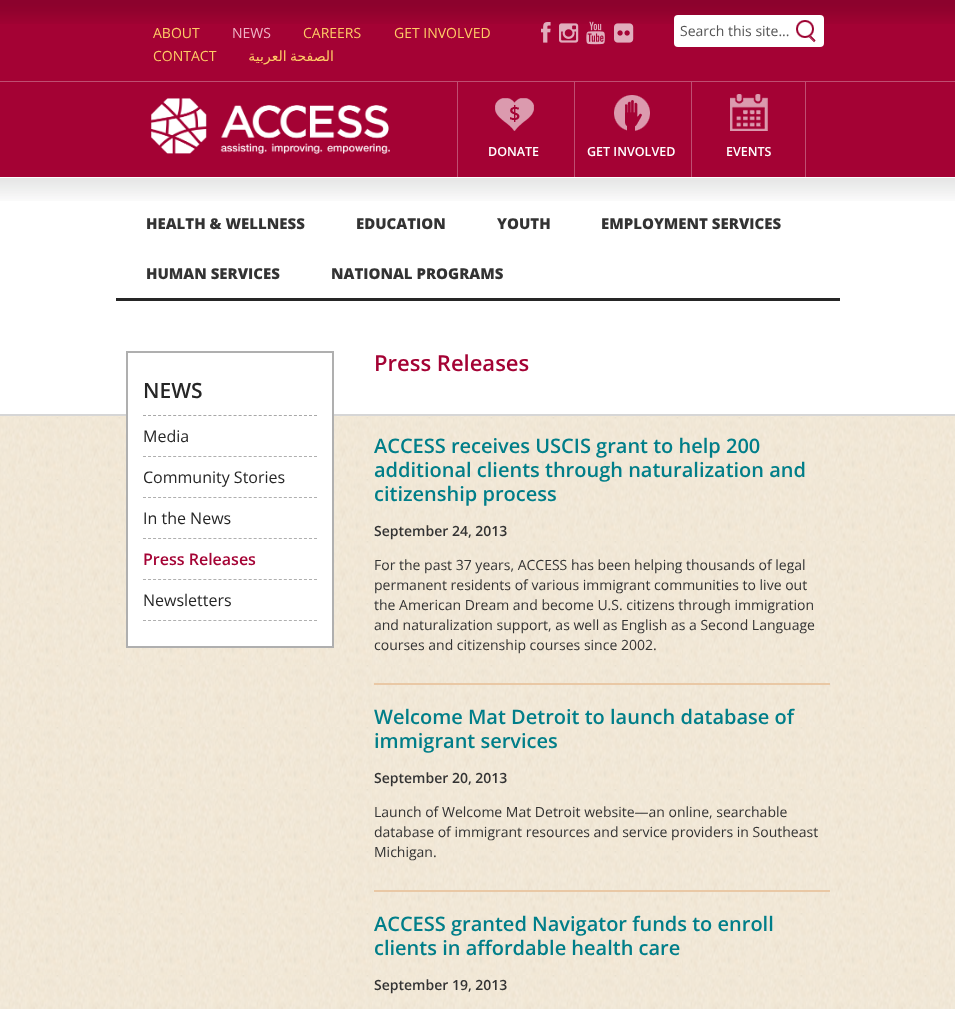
async function draw(canvas) {
  canvas.width = 955;
  canvas.height = 1009;
  const ctx = canvas.getContext('2d');
  ctx.miterLimit = 4;
  ctx.fontKerning = 'normal';
  function label(s, x, y, font, color) {
    ctx.font = font;
    ctx.fillStyle = color;
    ctx.fillText(s, x, y);
  }
  function rect(x, y, w, h, color) {
    ctx.fillStyle = color;
    ctx.fillRect(x, y, w, h);
  }
  function roundedRect(x, y, w, h, r, color) {
    ctx.fillStyle = color;
    ctx.beginPath();
    ctx.roundRect(x, y, w, h, r);
    ctx.fill();
  }
  async function image(src, x, y, w, h) {
    const img = new Image();
    img.src = src;
    await img.decode();
    ctx.drawImage(img, x, y, w, h);
  }
  let path;

  rect(0, 0, 955, 1009, '#fff');
  rect(0, 24, 955, 57, '#a40234');
  await image('assets/img1.png', 0, 0, 955, 24);
  rect(0, 81, 955, 1, '#bf4e71');
  label('ABOUT', 153, 38, '14px Open Sans', '#fc6');
  label('NEWS', 232, 38, '14px Open Sans', '#efb4c6');
  label('CAREERS', 303, 38, '14px Open Sans', '#fc6');
  label('GET INVOLVED', 394, 38, '14px Open Sans', '#fc6');
  label('CONTACT', 153, 61, '14px Open Sans', '#fc6');
  ctx.wordSpacing = '-1px';
  ctx.direction = 'rtl';
  label('الصفحة العربية', 334, 61, '14px DejaVu Sans', '#fc6');
  await image('assets/img2.png', 541, 22, 10, 21);
  await image('assets/img3.png', 559, 23, 20, 20);
  await image('assets/img4.png', 586, 21, 19, 24);
  await image('assets/img5.png', 614, 23, 20, 20);
  roundedRect(674, 15, 150, 32, 4, '#fff');
  ctx.wordSpacing = '0px';
  ctx.direction = 'ltr';
  label('Search this site...', 680, 36, '14px Open Sans', '#555');
  await image('assets/img6.png', 796, 20, 20, 23);
  rect(0, 82, 955, 95, '#a40234');
  await image('assets/img7.png', 151, 98, 239, 56);
  rect(457, 82, 1, 95, '#bf4e71');
  await image('assets/img8.png', 495, 98, 39, 33);
  label('DONATE', 488, 156, '600 12.5px Open Sans', '#fff');
  rect(574, 82, 1, 95, '#bf4e71');
  await image('assets/img9.png', 614, 95, 36, 36);
  label('GET INVOLVED', 587, 156, '600 12.5px Open Sans', '#fff');
  rect(805, 82, 1, 95, '#bf4e71');
  rect(691, 82, 1, 95, '#bf4e71');
  await image('assets/img10.png', 730, 94, 38, 37);
  label('EVENTS', 726, 156, '600 12.5px Open Sans', '#fff');
  await image('assets/img11.png', 0, 178, 955, 23);
  rect(116, 298, 724, 3, '#262626');
  label('HEALTH & WELLNESS', 146, 229, '800 15px Open Sans', '#333');
  label('EDUCATION', 356, 229, '800 15px Open Sans', '#333');
  label('YOUTH', 497, 229, '800 15px Open Sans', '#333');
  label('EMPLOYMENT SERVICES', 601, 229, '800 15px Open Sans', '#333');
  label('HUMAN SERVICES', 146, 279, '800 15px Open Sans', '#333');
  label('NATIONAL PROGRAMS', 331, 279, '800 15px Open Sans', '#333');
  await image('assets/img12.png', 0, 414, 955, 595);
  rect(128, 414, 204, 232, '#fff');
  ctx.strokeStyle = '#afafaf';
  ctx.lineWidth = 2;
  ctx.strokeRect(127, 352, 206, 295);
  path = new Path2D('M143 415.5H317');
  ctx.strokeStyle = '#a8a8a8';
  ctx.lineWidth = 1;
  ctx.setLineDash([3, 2.03]);
  ctx.stroke(path);
  label('NEWS', 143, 398, '600 21px Open Sans', '#262626');
  path = new Path2D('M143 456.5H317');
  ctx.strokeStyle = '#afafaf';
  ctx.stroke(path);
  label('Media', 143, 442, '16px Open Sans', '#262626');
  path = new Path2D('M143 497.5H317');
  ctx.stroke(path);
  label('Community Stories', 143, 483, '16px Open Sans', '#262626');
  path = new Path2D('M143 538.5H317');
  ctx.stroke(path);
  label('In the News', 143, 524, '16px Open Sans', '#262626');
  path = new Path2D('M143 579.5H317');
  ctx.stroke(path);
  label('Press Releases', 143, 565, '600 16px Open Sans', '#a40234');
  path = new Path2D('M143 620.5H317');
  ctx.stroke(path);
  label('Newsletters', 143, 606, '16px Open Sans', '#262626');
  label('Press Releases', 374, 371, '600 22px Open Sans', '#a40234');
  rect(374, 683, 456, 2, '#e9c8a5');
  label('ACCESS receives USCIS grant to help 200', 374, 453, '600 20px Open Sans', '#007e89');
  label('additional clients through naturalization and', 374, 477, '600 20px Open Sans', '#007e89');
  label('citizenship process', 374, 501, '600 20px Open Sans', '#007e89');
  label('September 24, 2013', 374, 536, '600 14px Open Sans', '#333');
  label('For the past 37 years, ACCESS has been helping thousands of legal', 374, 570, '14px Open Sans', '#333');
  label('permanent residents of various immigrant communities to live out', 374, 590, '14px Open Sans', '#333');
  label('the American Dream and become U.S. citizens through immigration', 374, 610, '14px Open Sans', '#333');
  label('and naturalization support, as well as English as a Second Language', 374, 630, '14px Open Sans', '#333');
  label('courses and citizenship courses since 2002.', 374, 650, '14px Open Sans', '#333');
  rect(374, 890, 456, 2, '#e9c8a5');
  label('Welcome Mat Detroit to launch database of', 374, 724, '600 20px Open Sans', '#007e89');
  label('immigrant services', 374, 748, '600 20px Open Sans', '#007e89');
  label('September 20, 2013', 374, 783, '600 14px Open Sans', '#333');
  label('Launch of Welcome Mat Detroit website—an online, searchable', 374, 817, '14px Open Sans', '#333');
  label('database of immigrant resources and service providers in Southeast', 374, 837, '14px Open Sans', '#333');
  label('Michigan.', 374, 857, '14px Open Sans', '#333');
  label('ACCESS granted Navigator funds to enroll', 374, 931, '600 20px Open Sans', '#007e89');
  label('clients in affordable health care', 374, 955, '600 20px Open Sans', '#007e89');
  label('September 19, 2013', 374, 990, '600 14px Open Sans', '#333');
}

draw(document.querySelector('canvas'));
